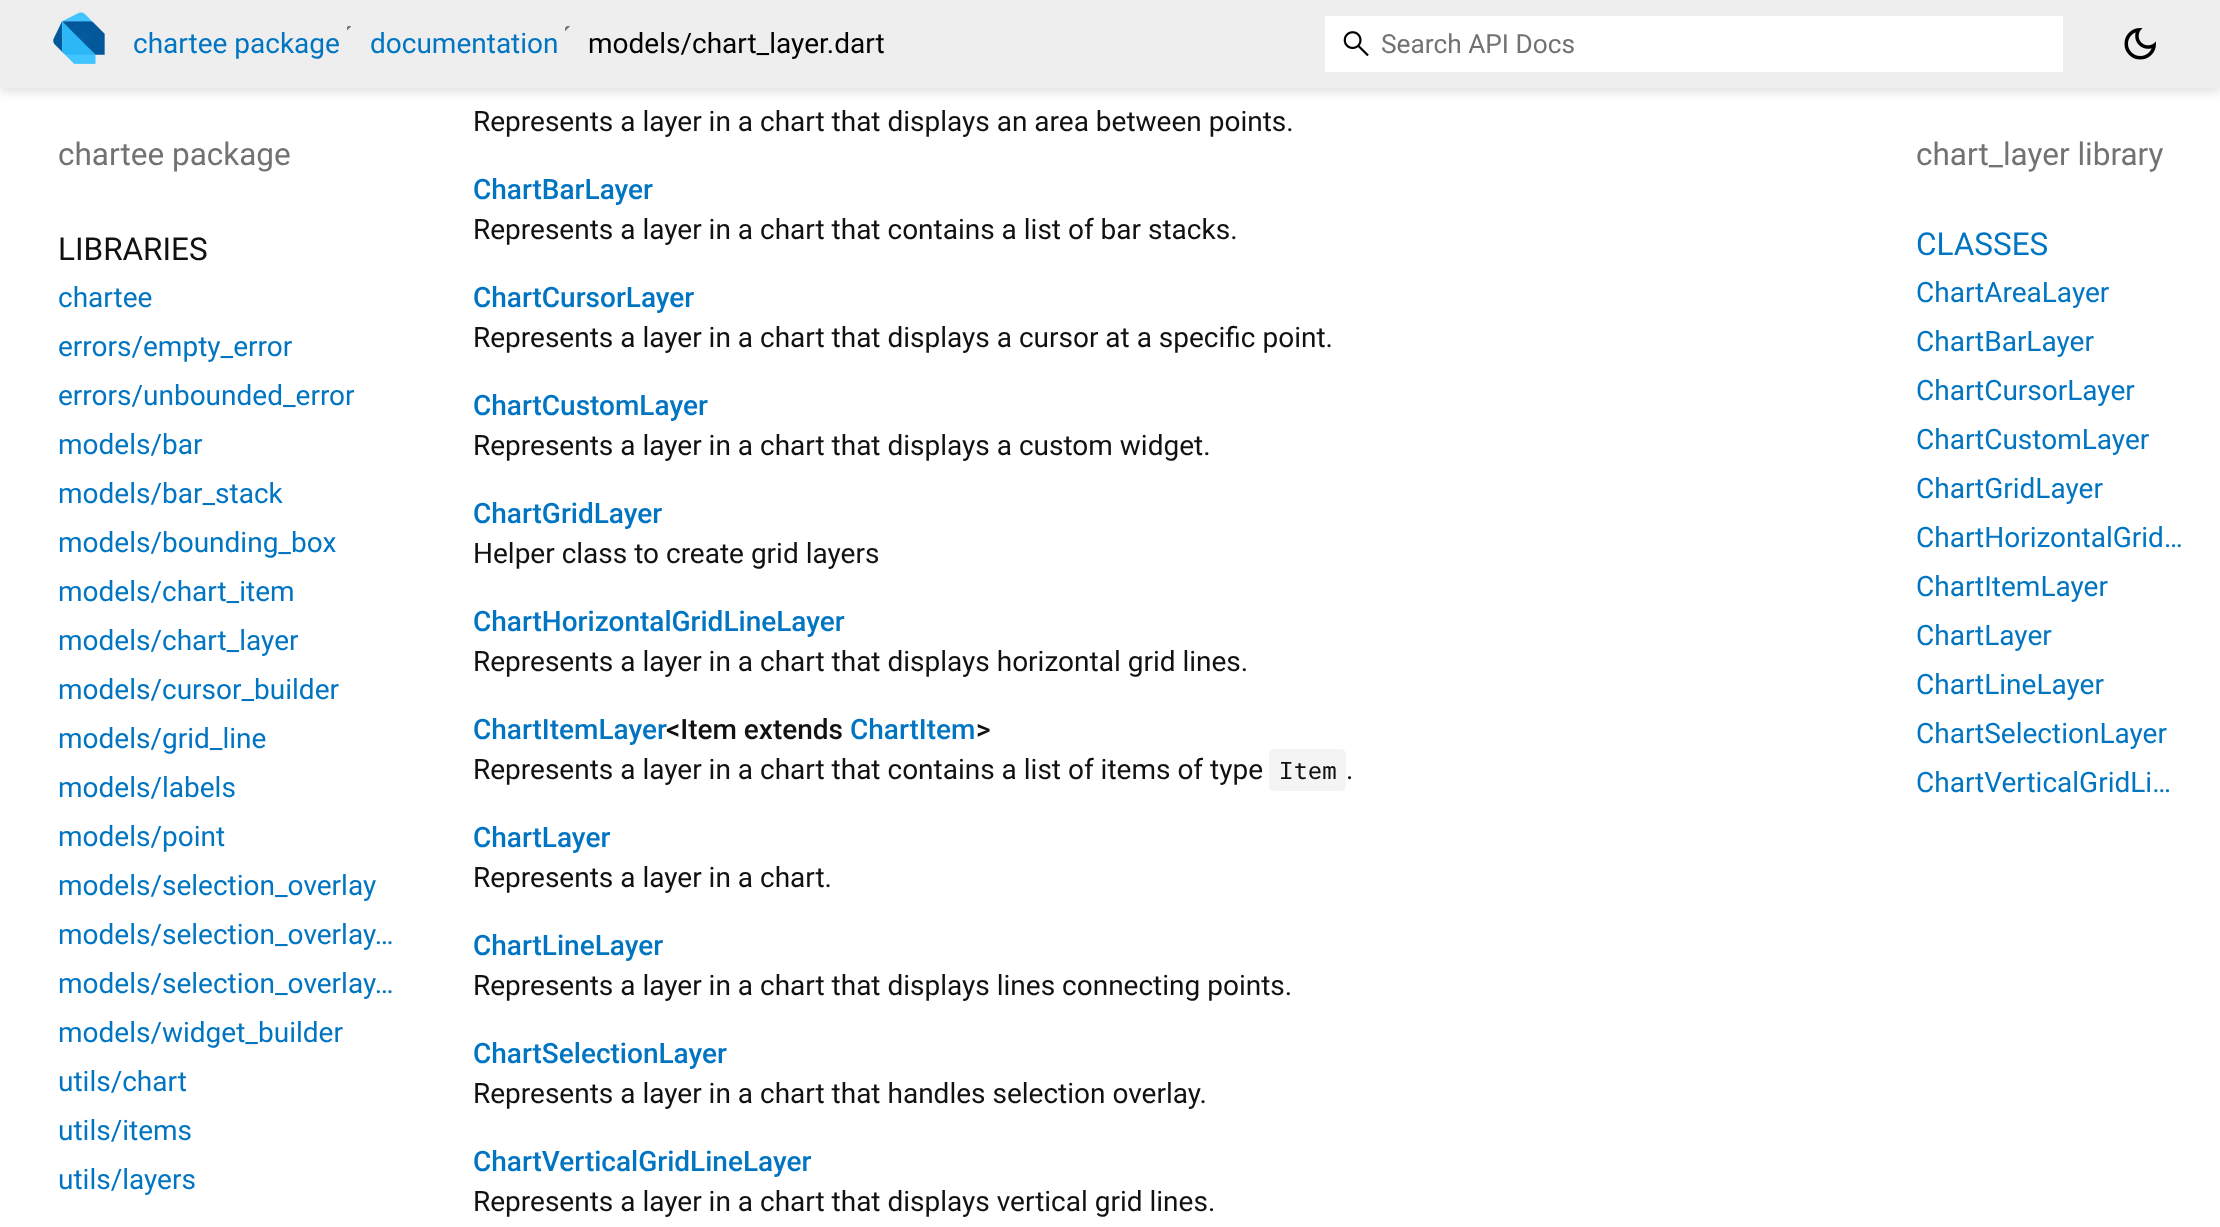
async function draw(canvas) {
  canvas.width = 2220;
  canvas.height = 1227;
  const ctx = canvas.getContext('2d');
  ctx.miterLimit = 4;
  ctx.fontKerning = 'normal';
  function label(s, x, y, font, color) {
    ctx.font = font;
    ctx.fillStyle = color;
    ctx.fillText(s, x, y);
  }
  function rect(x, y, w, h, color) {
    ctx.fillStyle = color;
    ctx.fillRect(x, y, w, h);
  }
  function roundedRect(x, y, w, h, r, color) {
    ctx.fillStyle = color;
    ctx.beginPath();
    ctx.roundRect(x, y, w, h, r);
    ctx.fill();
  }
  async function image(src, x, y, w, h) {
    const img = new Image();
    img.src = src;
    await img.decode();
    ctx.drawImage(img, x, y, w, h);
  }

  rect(0, 0, 2220, 1227, '#fff');
  ctx.fillStyle = '#0000001a';
  ctx.filter = 'blur(4.5px)';
  ctx.beginPath();
  ctx.rect(0, 5, 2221, 88);
  ctx.fill();
  ctx.filter = 'none';
  rect(0, 0, 2220, 88, '#eee');
  await image('assets/img1.png', 53, 12, 52, 52);
  label('chartee package', 133, 53, '28px Roboto', '#0175c2');
  await image('assets/img2.png', 347, 26, 5, 5);
  label('documentation', 370, 53, '28px Roboto', '#0175c2');
  await image('assets/img3.png', 565, 26, 5, 5);
  label('models/chart_layer.dart', 588, 53, '28px Roboto', '#000');
  rect(1325, 16, 738, 56, '#fff');
  await image('assets/img4.png', 1343, 31, 26, 26);
  label('Search API Docs', 1381, 53, '26.25px Roboto', '#727272');
  await image('assets/img5.png', 2124, 28, 32, 32);
  label('chartee package', 58, 165, '31.5px Roboto', '#727272');
  label('LIBRARIES', 58, 260, '31.5px Roboto', '#111');
  label('chartee', 58, 307, '28px Roboto', '#0175c2');
  label('errors/empty_error', 58, 356, '28px Roboto', '#0175c2');
  label('errors/unbounded_error', 58, 405, '28px Roboto', '#0175c2');
  label('models/bar', 58, 454, '28px Roboto', '#0175c2');
  label('models/bar_stack', 58, 503, '28px Roboto', '#0175c2');
  label('models/bounding_box', 58, 552, '28px Roboto', '#0175c2');
  label('models/chart_item', 58, 601, '28px Roboto', '#0175c2');
  label('models/chart_layer', 58, 650, '28px Roboto', '#0175c2');
  label('models/cursor_builder', 58, 699, '28px Roboto', '#0175c2');
  label('models/grid_line', 58, 748, '28px Roboto', '#0175c2');
  label('models/labels', 58, 797, '28px Roboto', '#0175c2');
  label('models/point', 58, 846, '28px Roboto', '#0175c2');
  label('models/selection_overlay', 58, 895, '28px Roboto', '#0175c2');
  label('models/selection_overlay…', 58, 944, '28px Roboto', '#0175c2');
  label('models/selection_overlay…', 58, 993, '28px Roboto', '#0175c2');
  label('models/widget_builder', 58, 1042, '28px Roboto', '#0175c2');
  label('utils/chart', 58, 1091, '28px Roboto', '#0175c2');
  label('utils/items', 58, 1140, '28px Roboto', '#0175c2');
  label('utils/layers', 58, 1189, '28px Roboto', '#0175c2');
  label('Represents a layer in a chart that displays an area between points.', 473, 131, '28px Roboto', '#111');
  label('ChartBarLayer', 473, 199, '500 28px Roboto', '#0175c2');
  label('Represents a layer in a chart that contains a list of bar stacks.', 473, 239, '28px Roboto', '#111');
  label('ChartCursorLayer', 473, 307, '500 28px Roboto', '#0175c2');
  label('Represents a layer in a chart that displays a cursor at a specific point.', 473, 347, '28px Roboto', '#111');
  label('ChartCustomLayer', 473, 415, '500 28px Roboto', '#0175c2');
  label('Represents a layer in a chart that displays a custom widget.', 473, 455, '28px Roboto', '#111');
  label('ChartGridLayer', 473, 523, '500 28px Roboto', '#0175c2');
  label('Helper class to create grid layers', 473, 563, '28px Roboto', '#111');
  label('ChartHorizontalGridLineLayer', 473, 631, '500 28px Roboto', '#0175c2');
  label('Represents a layer in a chart that displays horizontal grid lines.', 473, 671, '28px Roboto', '#111');
  label('ChartItemLayer', 473, 739, '500 28px Roboto', '#0175c2');
  label('<Item extends', 666, 739, '500 28px Roboto', '#111');
  label('ChartItem', 850, 739, '500 28px Roboto', '#0175c2');
  label('>', 976, 739, '500 28px Roboto', '#111');
  label('Represents a layer in a chart that contains a list of items of type', 473, 779, '28px Roboto', '#111');
  roundedRect(1269, 749, 77, 42, 5, '#f4f4f4');
  label('Item', 1279, 779, '24px Roboto Mono', '#111');
  label('.', 1346, 779, '28px Roboto', '#111');
  label('ChartLayer', 473, 847, '500 28px Roboto', '#0175c2');
  label('Represents a layer in a chart.', 473, 887, '28px Roboto', '#111');
  label('ChartLineLayer', 473, 955, '500 28px Roboto', '#0175c2');
  label('Represents a layer in a chart that displays lines connecting points.', 473, 995, '28px Roboto', '#111');
  label('ChartSelectionLayer', 473, 1063, '500 28px Roboto', '#0175c2');
  label('Represents a layer in a chart that handles selection overlay.', 473, 1103, '28px Roboto', '#111');
  label('ChartVerticalGridLineLayer', 473, 1171, '500 28px Roboto', '#0175c2');
  label('Represents a layer in a chart that displays vertical grid lines.', 473, 1211, '28px Roboto', '#111');
  label('chart_layer library', 1916, 165, '31.5px Roboto', '#727272');
  label('CLASSES', 1916, 255, '31.5px Roboto', '#0175c2');
  label('ChartAreaLayer', 1916, 302, '28px Roboto', '#0175c2');
  label('ChartBarLayer', 1916, 351, '28px Roboto', '#0175c2');
  label('ChartCursorLayer', 1916, 400, '28px Roboto', '#0175c2');
  label('ChartCustomLayer', 1916, 449, '28px Roboto', '#0175c2');
  label('ChartGridLayer', 1916, 498, '28px Roboto', '#0175c2');
  label('ChartHorizontalGrid…', 1916, 547, '28px Roboto', '#0175c2');
  label('ChartItemLayer', 1916, 596, '28px Roboto', '#0175c2');
  label('ChartLayer', 1916, 645, '28px Roboto', '#0175c2');
  label('ChartLineLayer', 1916, 694, '28px Roboto', '#0175c2');
  label('ChartSelectionLayer', 1916, 743, '28px Roboto', '#0175c2');
  label('ChartVerticalGridLi…', 1916, 792, '28px Roboto', '#0175c2');
}

draw(document.querySelector('canvas'));
